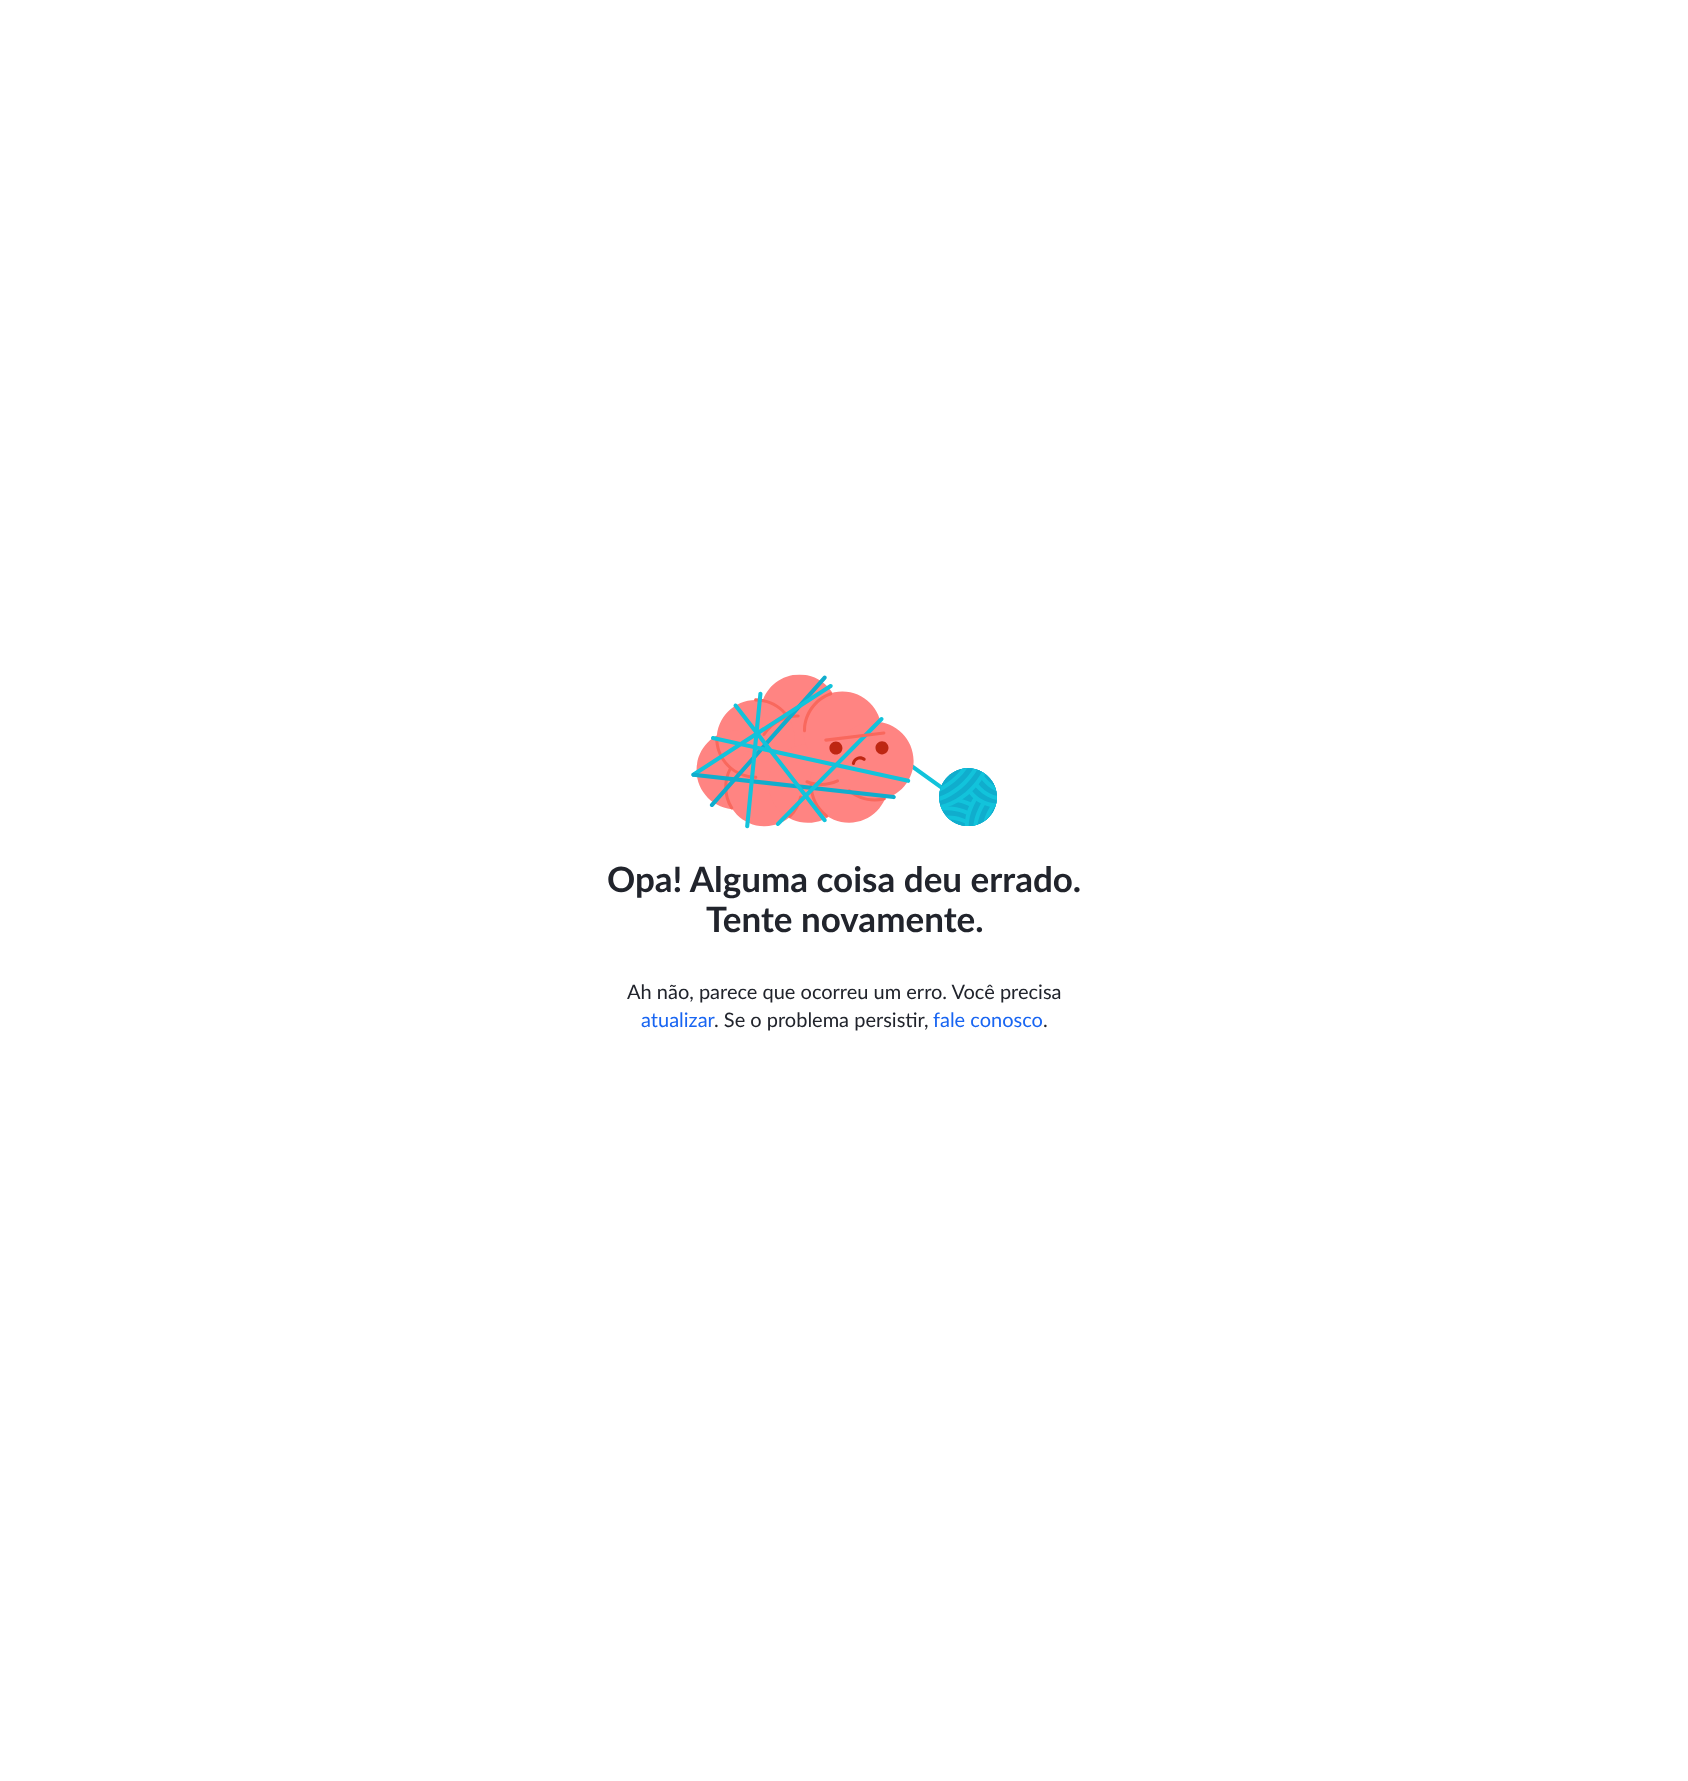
async function draw(canvas) {
  canvas.width = 1688;
  canvas.height = 1781;
  const ctx = canvas.getContext('2d');
  ctx.miterLimit = 4;
  ctx.fontKerning = 'normal';
  function label(s, x, y, font, color) {
    ctx.font = font;
    ctx.fillStyle = color;
    ctx.fillText(s, x, y);
  }
  function rect(x, y, w, h, color) {
    ctx.fillStyle = color;
    ctx.fillRect(x, y, w, h);
  }
  async function image(src, x, y, w, h) {
    const img = new Image();
    img.src = src;
    await img.decode();
    ctx.drawImage(img, x, y, w, h);
  }

  rect(0, 0, 1688, 1781, '#fff');
  await image('assets/img1.png', 691, 674, 306, 155);
  label('Opa! Alguma coisa deu errado.', 607, 892, 'bold 35px Lato', '#21242c');
  label('Tente novamente.', 706, 932, 'bold 35px Lato', '#21242c');
  label('Ah não, parece que ocorreu um erro. Você precisa', 627, 999, '20px Lato', '#21242c');
  label('atualizar', 641, 1027, '20px Lato', '#1865f2');
  label('. Se o problema persistir,', 714, 1027, '20px Lato', '#21242c');
  label('fale conosco', 933, 1027, '20px Lato', '#1865f2');
  label('.', 1043, 1027, '20px Lato', '#21242c');
}

draw(document.querySelector('canvas'));
